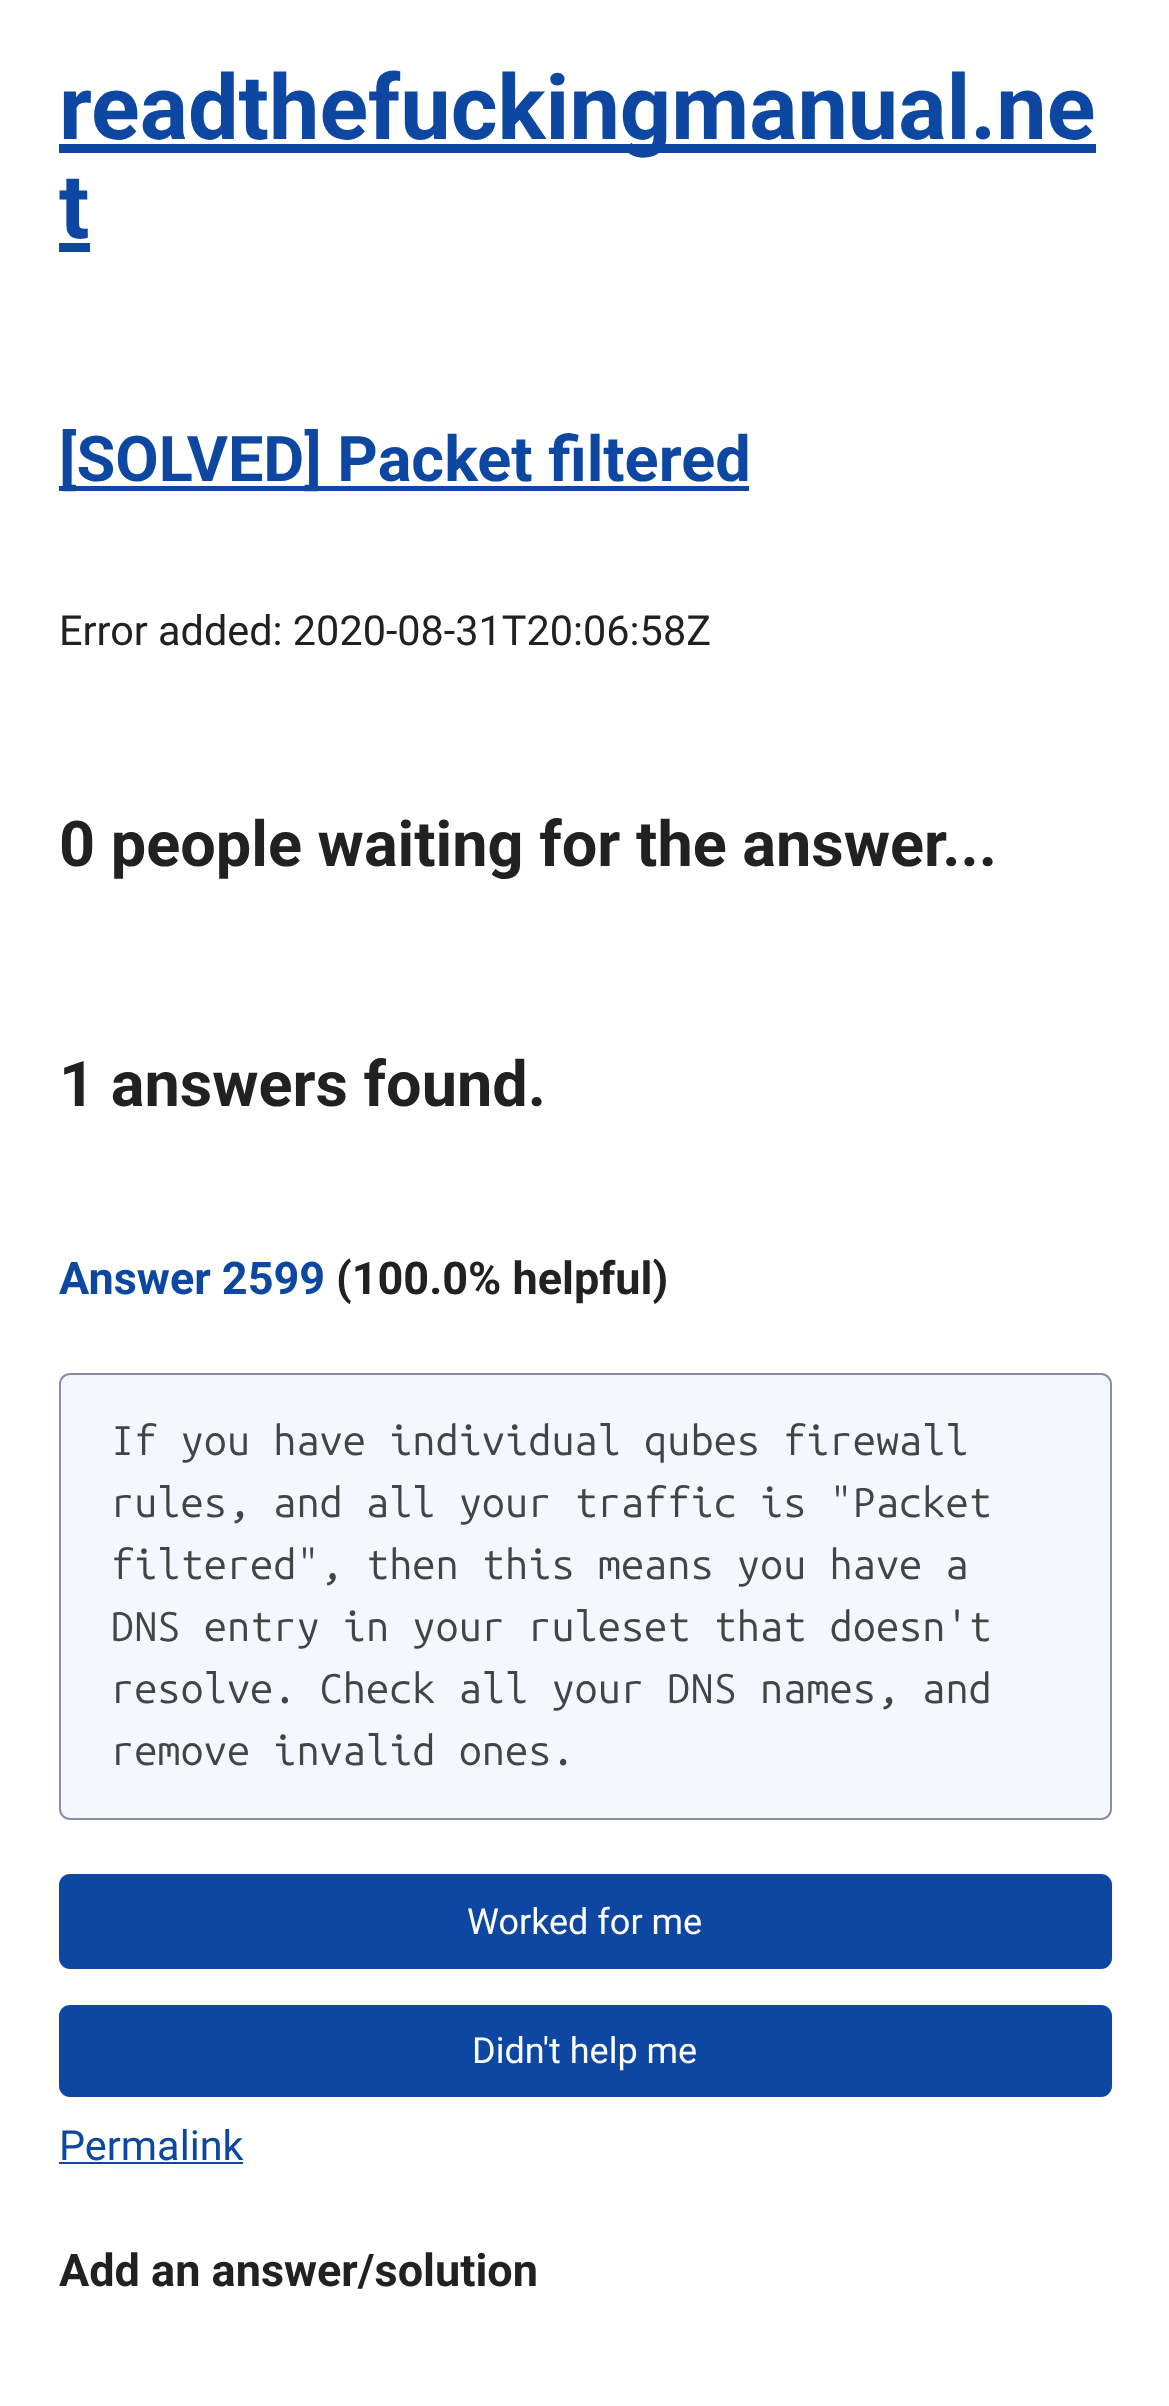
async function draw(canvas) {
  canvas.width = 1169;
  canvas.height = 2406;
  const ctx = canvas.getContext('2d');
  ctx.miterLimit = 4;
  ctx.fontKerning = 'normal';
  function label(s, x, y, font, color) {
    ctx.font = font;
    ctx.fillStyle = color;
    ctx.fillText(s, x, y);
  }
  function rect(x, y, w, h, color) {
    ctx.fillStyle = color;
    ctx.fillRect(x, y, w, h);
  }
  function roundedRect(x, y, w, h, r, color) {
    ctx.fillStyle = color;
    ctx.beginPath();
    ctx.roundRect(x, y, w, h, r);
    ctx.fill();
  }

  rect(0, 0, 1169, 2406, '#fff');
  rect(59, 144, 1037, 9, '#0d47a1');
  label('readthefuckingmanual.ne', 59, 139, 'bold 90px Roboto', '#0d47a1');
  label('t', 59, 238, 'bold 90px Roboto', '#0d47a1');
  rect(59, 243, 31, 9, '#0d47a1');
  rect(59, 486, 690, 5, '#0d47a1');
  label('[SOLVED] Packet filtered', 59, 481, 'bold 63px Roboto', '#0d47a1');
  label('Error added: 2020-08-31T20:06:58Z', 59, 645, '41.4px Roboto', '#212121');
  label('0 people waiting for the answer...', 59, 866, 'bold 63px Roboto', '#212121');
  label('1 answers found.', 59, 1106, 'bold 63px Roboto', '#212121');
  label('Answer 2599', 59, 1294, 'bold 45px Roboto', '#0d47a1');
  label('(100.0% helpful)', 336, 1294, 'bold 45px Roboto', '#212121');
  ctx.fillStyle = '#f5f7ff';
  ctx.beginPath();
  ctx.roundRect(60, 1374, 1051, 445, 10);
  ctx.fill();
  ctx.strokeStyle = '#898ea4';
  ctx.lineWidth = 2;
  ctx.stroke();
  label('If you have individual qubes firewall', 111, 1455, '41.4px Ubuntu Mono', '#444');
  label('rules, and all your traffic is "Packet', 111, 1517, '41.4px Ubuntu Mono', '#444');
  label('filtered", then this means you have a', 111, 1579, '41.4px Ubuntu Mono', '#444');
  label('DNS entry in your ruleset that doesn\'t', 111, 1641, '41.4px Ubuntu Mono', '#444');
  label('resolve. Check all your DNS names, and', 111, 1703, '41.4px Ubuntu Mono', '#444');
  label('remove invalid ones.', 111, 1765, '41.4px Ubuntu Mono', '#444');
  roundedRect(59, 1874, 1053, 95, 11, '#0d47a1');
  label('Worked for me', 467, 1934, '36px Roboto', '#fff');
  roundedRect(59, 2005, 1053, 92, 11, '#0d47a1');
  label('Didn\'t help me', 472, 2063, '36px Roboto', '#fff');
  label('Permalink', 59, 2160, '41.4px Roboto', '#0d47a1');
  rect(59, 2162, 184, 2, '#0d47a1');
  label('Add an answer/solution', 59, 2286, 'bold 45px Roboto', '#212121');
}

draw(document.querySelector('canvas'));
